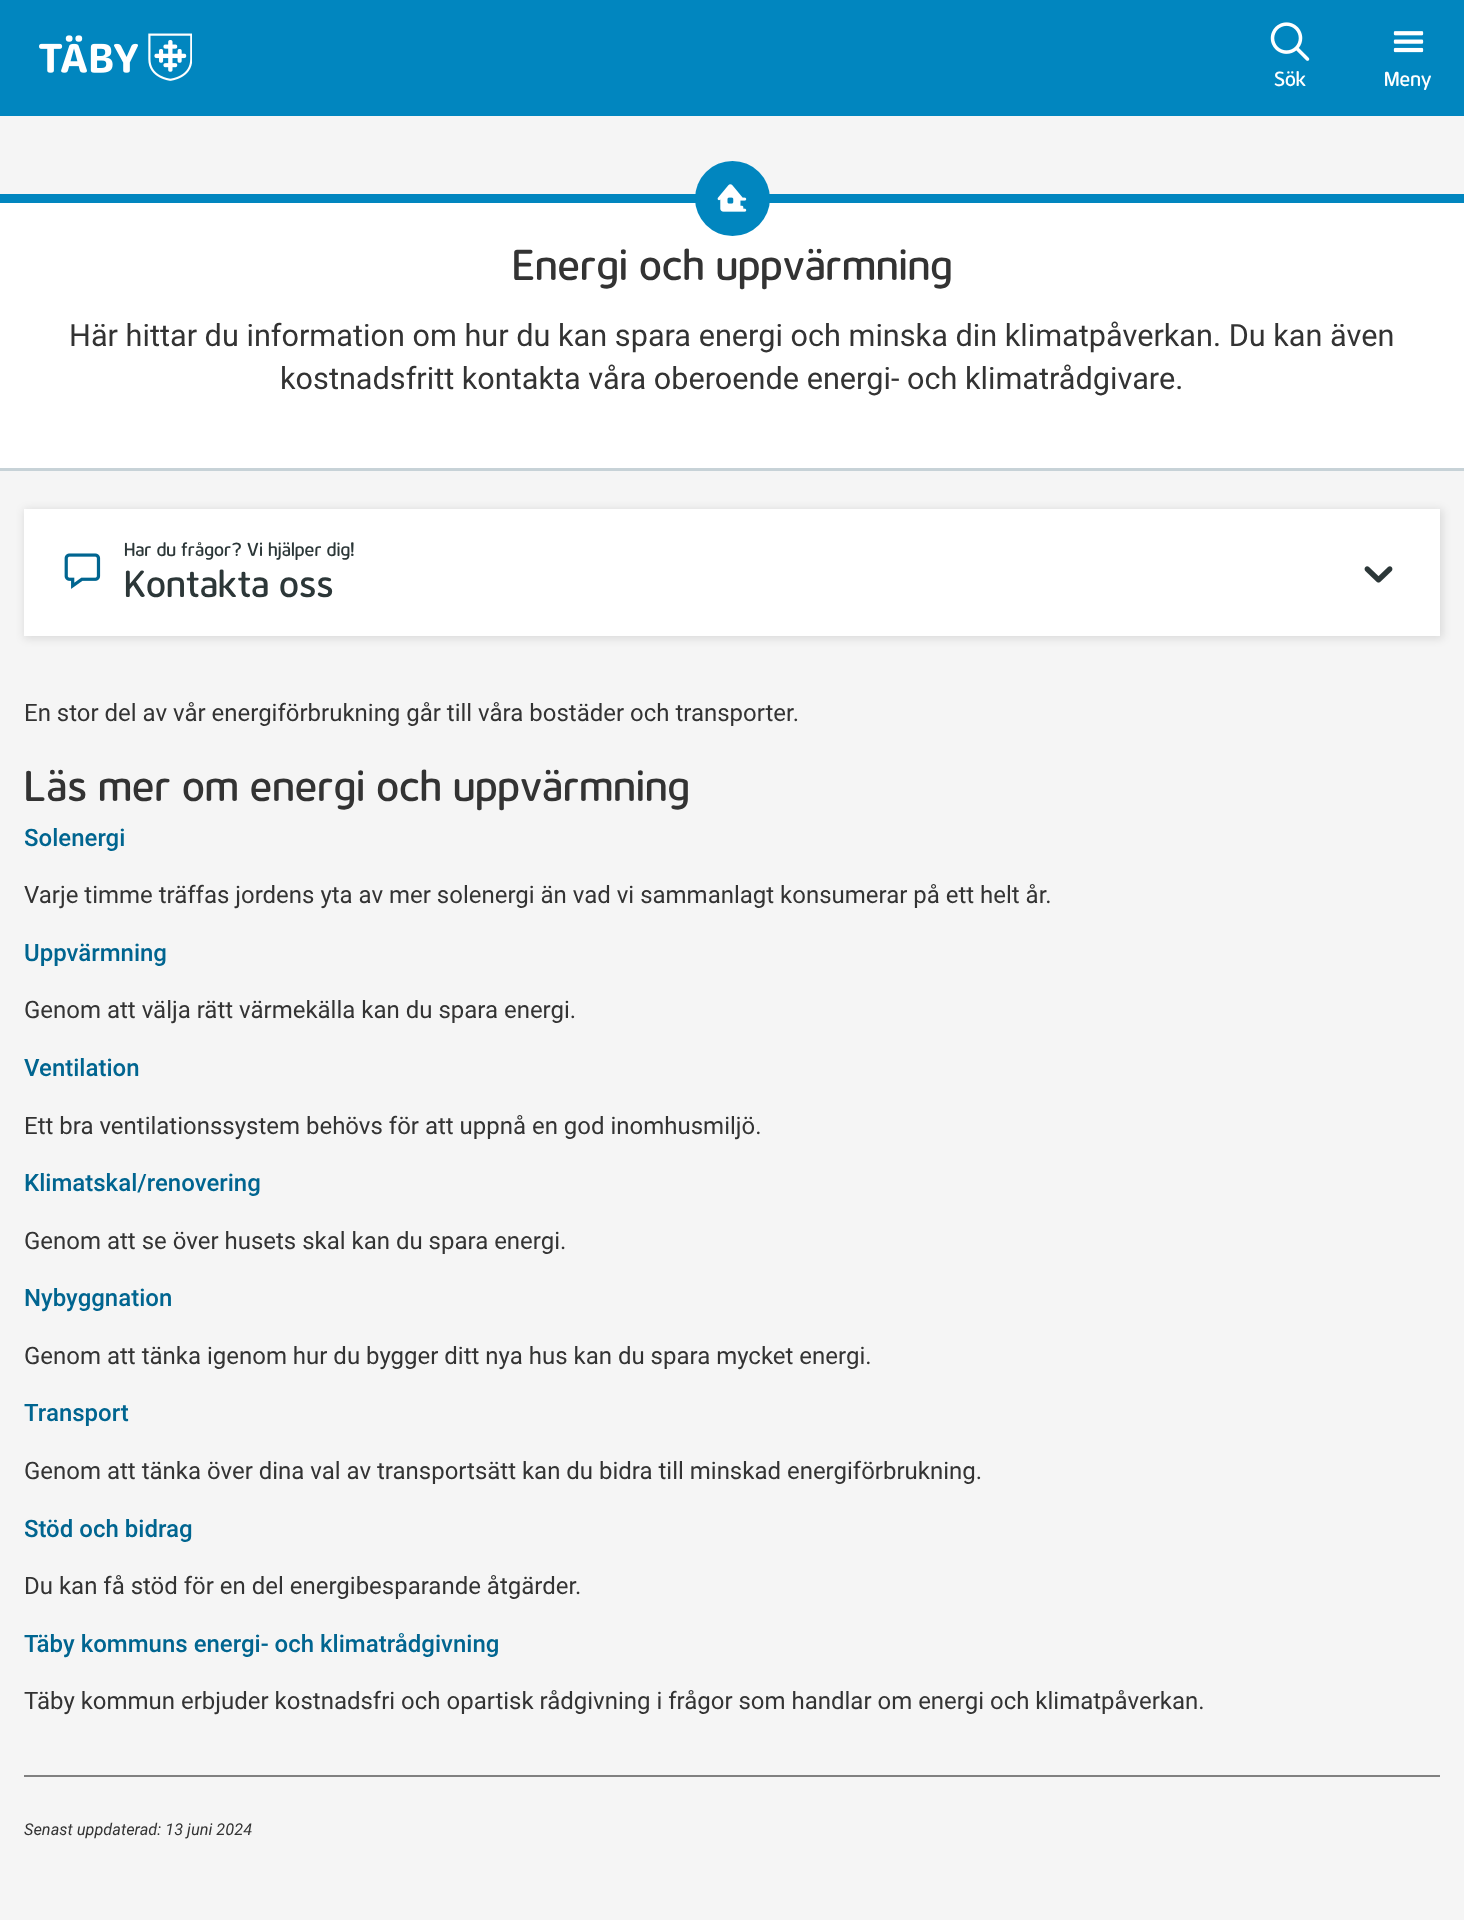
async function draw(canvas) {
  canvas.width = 1464;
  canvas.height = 1920;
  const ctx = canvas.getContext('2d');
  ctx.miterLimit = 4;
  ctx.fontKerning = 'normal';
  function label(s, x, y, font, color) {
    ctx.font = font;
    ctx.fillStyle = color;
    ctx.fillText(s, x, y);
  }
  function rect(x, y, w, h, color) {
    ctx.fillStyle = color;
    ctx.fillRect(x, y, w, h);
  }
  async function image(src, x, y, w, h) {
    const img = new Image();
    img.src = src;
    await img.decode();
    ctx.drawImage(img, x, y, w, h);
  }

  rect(0, 0, 1464, 1920, '#f5f5f5');
  rect(0, 0, 1464, 116, '#0186bf');
  await image('assets/img1.png', 39, 33, 153, 48);
  await image('assets/img2.png', 1270, 22, 40, 39);
  label('Sök', 1274, 86, '21px "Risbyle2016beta"', '#fff');
  await image('assets/img3.png', 1393, 31, 31, 22);
  label('Meny', 1384, 86, '21px "Risbyle2016beta"', '#fff');
  rect(0, 203, 1464, 265, '#fff');
  rect(0, 194, 1464, 9, '#0186bf');
  rect(0, 468, 1464, 3, '#c7d2d7');
  ctx.fillStyle = '#0186bf';
  ctx.beginPath();
  ctx.arc(732.5, 198.5, 37.5, 0, 2 * Math.PI);
  ctx.fill();
  await image('assets/img4.png', 717, 184, 30, 28);
  label('Energi och uppvärmning', 512, 280, '44.25px "Risbyle2016beta"', '#333');
  label('Här hittar du information om hur du kan spara energi och minska din klimatpåverkan. Du kan även', 69, 346, '30.7px Roboto', '#333');
  label('kostnadsfritt kontakta våra oberoende energi- och klimatrådgivare.', 280, 389, '30.7px Roboto', '#333');
  ctx.fillStyle = '#0000001a';
  ctx.filter = 'blur(4.5px)';
  ctx.beginPath();
  ctx.rect(24, 509, 1419, 130);
  ctx.fill();
  ctx.filter = 'none';
  rect(24, 509, 1416, 127, '#fff');
  label('Har du frågor? Vi hjälper dig!', 124, 556, '19.4px "Risbyle2016beta"', '#2c3738');
  await image('assets/img5.png', 64, 553, 37, 36);
  label('Kontakta oss', 124, 597, '38.75px "Risbyle2016beta"', '#2c3738');
  await image('assets/img6.png', 1364, 566, 29, 17);
  label('En stor del av vår energiförbrukning går till våra bostäder och transporter.', 24, 721, '24px Roboto', '#333');
  label('Läs mer om energi och uppvärmning', 24, 801, '44.25px "Risbyle2016beta"', '#333');
  label('Solenergi', 24, 846, '500 24px Roboto', '#006590');
  label('Varje timme träffas jordens yta av mer solenergi än vad vi sammanlagt konsumerar på ett helt år.', 24, 903, '24px Roboto', '#333');
  label('Uppvärmning', 24, 961, '500 24px Roboto', '#006590');
  label('Genom att välja rätt värmekälla kan du spara energi.', 24, 1018, '24px Roboto', '#333');
  label('Ventilation', 24, 1076, '500 24px Roboto', '#006590');
  label('Ett bra ventilationssystem behövs för att uppnå en god inomhusmiljö.', 24, 1134, '24px Roboto', '#333');
  label('Klimatskal/renovering', 24, 1191, '500 24px Roboto', '#006590');
  label('Genom att se över husets skal kan du spara energi.', 24, 1249, '24px Roboto', '#333');
  label('Nybyggnation', 24, 1306, '500 24px Roboto', '#006590');
  label('Genom att tänka igenom hur du bygger ditt nya hus kan du spara mycket energi.', 24, 1364, '24px Roboto', '#333');
  label('Transport', 24, 1421, '500 24px Roboto', '#006590');
  label('Genom att tänka över dina val av transportsätt kan du bidra till minskad energiförbrukning.', 24, 1479, '24px Roboto', '#333');
  label('Stöd och bidrag', 24, 1537, '500 24px Roboto', '#006590');
  label('Du kan få stöd för en del energibesparande åtgärder.', 24, 1594, '24px Roboto', '#333');
  label('Täby kommuns energi- och klimatrådgivning', 24, 1652, '500 24px Roboto', '#006590');
  label('Täby kommun erbjuder kostnadsfri och opartisk rådgivning i frågor som handlar om energi och klimatpåverkan.', 24, 1709, '24px Roboto', '#333');
  rect(24, 1775, 1416, 2, '#808080');
  label('Senast uppdaterad: 13 juni 2024', 24, 1835, 'italic 16.25px Roboto', '#333');
}

draw(document.querySelector('canvas'));
